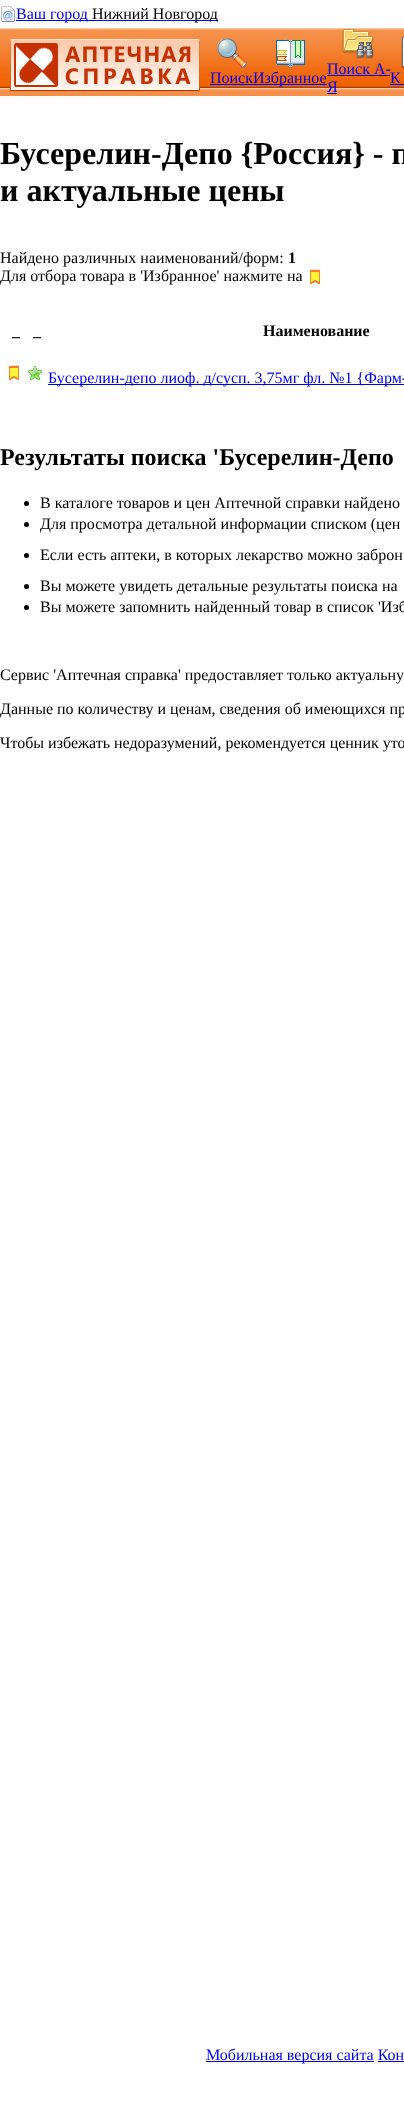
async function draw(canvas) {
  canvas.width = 404;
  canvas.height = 2128;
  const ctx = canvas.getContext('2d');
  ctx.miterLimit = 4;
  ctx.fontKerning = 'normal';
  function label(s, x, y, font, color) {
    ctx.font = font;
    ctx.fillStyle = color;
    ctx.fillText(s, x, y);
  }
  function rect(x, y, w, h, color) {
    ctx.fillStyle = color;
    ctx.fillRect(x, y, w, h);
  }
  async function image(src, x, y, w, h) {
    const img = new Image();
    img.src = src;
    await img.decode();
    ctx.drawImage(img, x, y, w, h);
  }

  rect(0, 0, 404, 2128, '#fff');
  await image('assets/img1.png', 1, 6, 14, 16);
  rect(16, 20, 202, 1, '#00e');
  label('Ваш город', 16, 19, '16px Liberation Serif', '#00e');
  label('Нижний Новгород', 92, 19, '16px Liberation Serif', '#000');
  await image('assets/img2.png', 0, 28, 404, 68);
  await image('assets/img3.png', 10, 39, 190, 52);
  await image('assets/img4.png', 276, 38, 29, 29);
  await image('assets/img5.png', 342, 29, 32, 30);
  label('Поиск А-', 327, 74, '16px Liberation Serif', '#00e');
  rect(327, 75, 63, 1, '#00e');
  rect(210, 84, 117, 1, '#00e');
  label('Я', 327, 92, '16px Liberation Serif', '#00e');
  rect(327, 93, 10, 1, '#00e');
  await image('assets/img6.png', 217, 38, 30, 30);
  label('ПоискИзбранное', 210, 83, '16px Liberation Serif', '#00e');
  await image('assets/img7.png', 401, 37, 3, 32);
  label('К', 390, 83, '16px Liberation Serif', '#00e');
  rect(390, 84, 14, 1, '#00e');
  label('Бусерелин-Депо {Россия} - п', 0, 164, 'bold 32px Liberation Serif', '#000');
  label('и актуальные цены', 0, 201, 'bold 32px Liberation Serif', '#000');
  label('Найдено различных наименований/форм:', 0, 263, '16px Liberation Serif', '#000');
  label('1', 288, 263, 'bold 16px Liberation Serif', '#000');
  label('Для отбора товара в \'Избранное\' нажмите на', 0, 281, '16px Liberation Serif', '#000');
  await image('assets/img8.png', 310, 269, 10, 16);
  label('Наименование', 263, 336, 'bold 16px Liberation Serif', '#000');
  label('_', 12, 336, 'bold 16px Liberation Serif', '#000');
  label('_', 33, 336, 'bold 16px Liberation Serif', '#000');
  await image('assets/img8.png', 9, 365, 10, 16);
  await image('assets/img9.png', 28, 366, 14, 14);
  rect(48, 384, 356, 1, '#00e');
  label('Бусерелин-депо лиоф. д/сусп. 3,75мг фл. №1 {Фарм-', 48, 383, '16px Liberation Serif', '#00e');
  label('Результаты поиска \'Бусерелин-Депо', 0, 465, 'bold 24px Liberation Serif', '#000');
  ctx.beginPath();
  ctx.arc(26.5, 503.5, 2.5, 0, 2 * Math.PI);
  ctx.fill();
  label('В каталоге товаров и цен Аптечной справки найдено', 40, 508, '16px Liberation Serif', '#000');
  ctx.beginPath();
  ctx.arc(26.5, 524.5, 2.5, 0, 2 * Math.PI);
  ctx.fill();
  label('Для просмотра детальной информации списком (цен', 40, 529, '16px Liberation Serif', '#000');
  ctx.beginPath();
  ctx.arc(26.5, 555.5, 2.5, 0, 2 * Math.PI);
  ctx.fill();
  label('Если есть аптеки, в которых лекарство можно заброн', 40, 560, '16px Liberation Serif', '#000');
  ctx.beginPath();
  ctx.arc(26.5, 586.5, 2.5, 0, 2 * Math.PI);
  ctx.fill();
  label('Вы можете увидеть детальные результаты поиска на', 40, 591, '16px Liberation Serif', '#000');
  ctx.beginPath();
  ctx.arc(26.5, 607.5, 2.5, 0, 2 * Math.PI);
  ctx.fill();
  label('Вы можете запомнить найденный товар в список \'Изб', 40, 612, '16px Liberation Serif', '#000');
  label('Сервис \'Аптечная справка\' предоставляет только актуальну', 0, 680, '16px Liberation Serif', '#000');
  label('Данные по количеству и ценам, сведения об имеющихся пр', 0, 714, '16px Liberation Serif', '#000');
  label('Чтобы избежать недоразумений, рекомендуется ценник уто', 0, 748, '16px Liberation Serif', '#000');
  rect(206, 2061, 168, 1, '#00e');
  label('Мобильная версия сайта Кон', 206, 2060, '16px Liberation Serif', '#00e');
  rect(378, 2061, 26, 1, '#00e');
}

draw(document.querySelector('canvas'));
